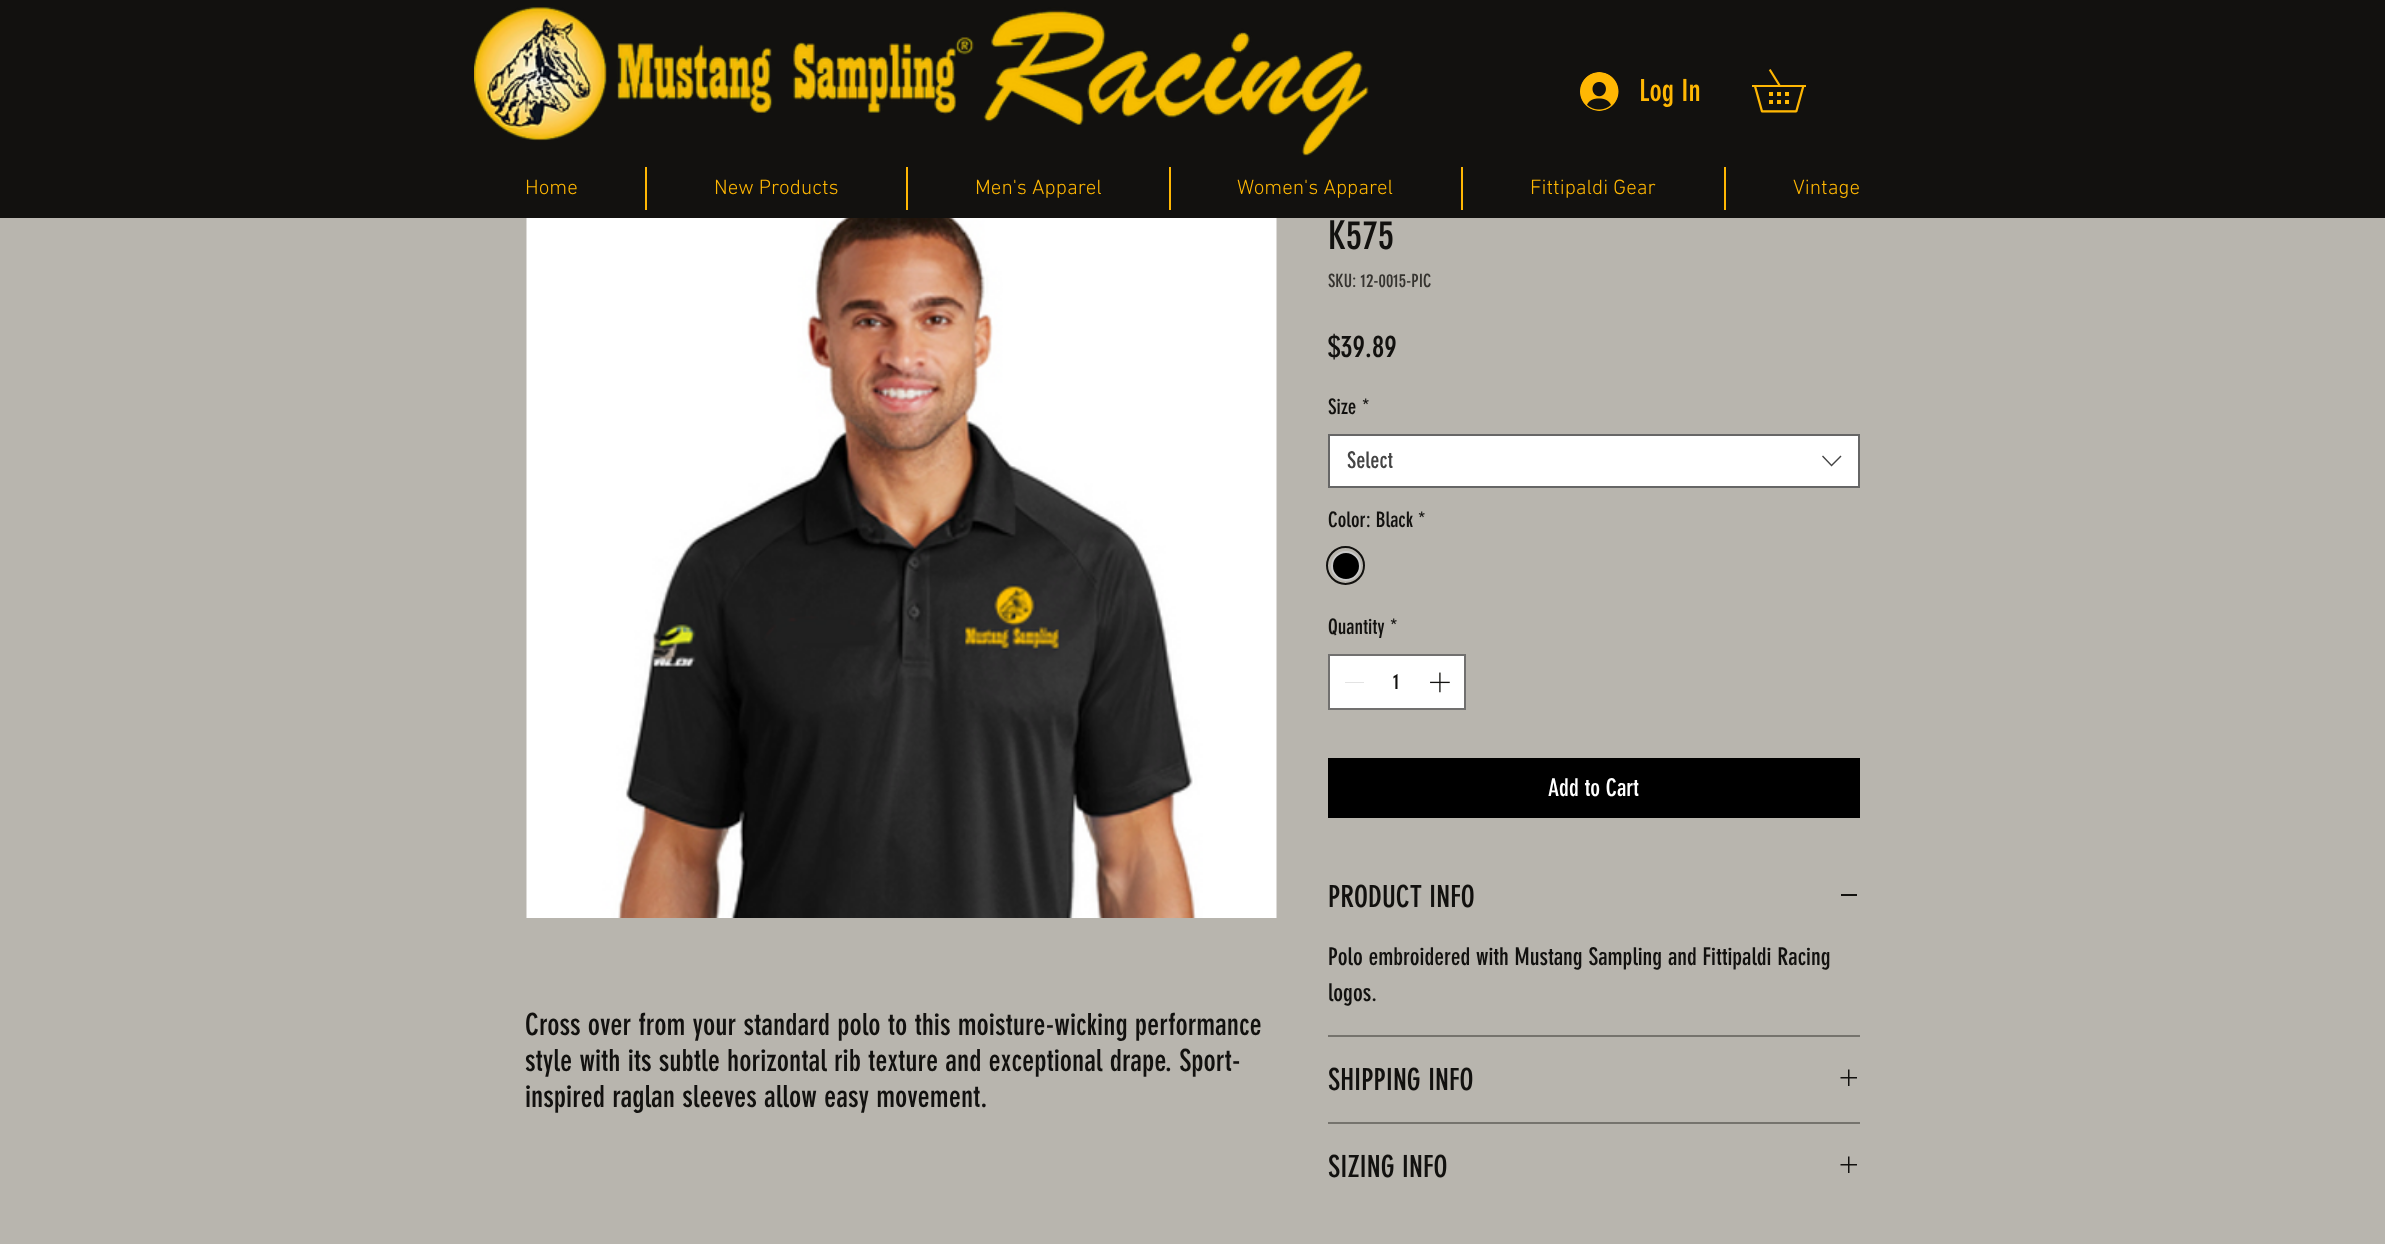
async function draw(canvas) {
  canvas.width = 2385;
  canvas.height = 1244;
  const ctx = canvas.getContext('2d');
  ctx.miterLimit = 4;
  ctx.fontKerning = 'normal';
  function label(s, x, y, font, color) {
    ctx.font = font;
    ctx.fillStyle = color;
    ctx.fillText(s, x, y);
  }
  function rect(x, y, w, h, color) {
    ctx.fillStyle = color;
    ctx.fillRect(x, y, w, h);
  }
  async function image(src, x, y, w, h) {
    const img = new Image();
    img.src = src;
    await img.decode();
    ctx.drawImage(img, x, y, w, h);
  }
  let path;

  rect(0, 0, 2385, 1244, '#b8b5ae');
  rect(0, 0, 2385, 218, '#12110f');
  await image('assets/img1.png', 474, 7, 895, 149);
  await image('assets/img2.png', 1580, 72, 39, 39);
  label('Log In', 1639, 101, '30px "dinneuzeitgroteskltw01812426"', '#ffb703');
  await image('assets/img3.png', 1752, 69, 54, 44);
  label('Home', 525, 194, '300 21px "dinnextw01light"', '#ffb703');
  rect(645, 167, 2, 43, '#ffb703');
  label('New Products', 714, 194, '300 21px "dinnextw01light"', '#ffb703');
  rect(906, 167, 2, 43, '#ffb703');
  label('Men\'s Apparel', 975, 194, '300 21px "dinnextw01light"', '#ffb703');
  rect(1169, 167, 2, 43, '#ffb703');
  label('Women\'s Apparel', 1237, 194, '300 21px "dinnextw01light"', '#ffb703');
  rect(1461, 167, 2, 43, '#ffb703');
  label('Fittipaldi Gear', 1530, 194, '300 21px "dinnextw01light"', '#ffb703');
  rect(1724, 167, 2, 43, '#ffb703');
  label('Vintage', 1793, 194, '300 21px "dinnextw01light"', '#ffb703');
  await image('assets/img4.png', 526, 218, 751, 700);
  label('Cross over from your standard polo to this moisture-wicking performance', 525, 1035, '30px "dinneuzeitgroteskltw01812426"', '#12110f');
  label('style with its subtle horizontal rib texture and exceptional drape. Sport-', 525, 1071, '30px "dinneuzeitgroteskltw01812426"', '#12110f');
  label('inspired raglan sleeves allow easy movement.', 525, 1107, '30px "dinneuzeitgroteskltw01812426"', '#12110f');
  label('K575', 1328, 249, '39px "dinneuzeitgroteskltw01812426"', '#12110f');
  label('SKU: 12-0015-PIC', 1328, 287, '18px "dinneuzeitgroteskltw01812426"', '#363430');
  label('$39.89', 1328, 357, '30px "dinneuzeitgroteskltw01812426"', '#12110f');
  label('Size', 1328, 414, '21px "dinneuzeitgroteskltw01812426"', '#12110f');
  label('*', 1362, 414, '21px "dinneuzeitgroteskltw01812426"', '#12110f');
  ctx.fillStyle = '#fff';
  ctx.beginPath();
  ctx.rect(1329, 435, 530, 52);
  ctx.fill();
  ctx.strokeStyle = '#666';
  ctx.lineWidth = 2;
  ctx.stroke();
  label('Select', 1347, 468, '22.5px "dinneuzeitgroteskltw01812426"', '#444');
  path = new Path2D('M1840.5 455.5L1841.5 456.5L1831.5 466.5L1822 456.5L1823 455.5L1831.5 464.5Z');
  ctx.fill(path, 'evenodd');
  label('Color: Black', 1328, 527, '21px "dinneuzeitgroteskltw01812426"', '#12110f');
  label('*', 1418, 527, '21px "dinneuzeitgroteskltw01812426"', '#12110f');
  ctx.beginPath();
  ctx.arc(1345.5, 565.5, 18.5, 0, 2 * Math.PI);
  ctx.strokeStyle = '#12110f';
  ctx.stroke();
  ctx.fillStyle = '#000';
  ctx.beginPath();
  ctx.arc(1346, 566, 14, 0, 2 * Math.PI);
  ctx.fill();
  ctx.strokeStyle = '#c9c9c9';
  ctx.stroke();
  label('Quantity', 1328, 634, '21px "dinneuzeitgroteskltw01812426"', '#12110f');
  label('*', 1390, 634, '21px "dinneuzeitgroteskltw01812426"', '#12110f');
  ctx.fillStyle = '#fff';
  ctx.beginPath();
  ctx.rect(1329, 655, 136, 54);
  ctx.fill();
  ctx.strokeStyle = '#71706f';
  ctx.stroke();
  rect(1345, 682, 19, 1, '#e3e3e3');
  label('1', 1393, 689, '21px "dinneuzeitgroteskltw01812426"', '#12110f');
  await image('assets/img5.png', 1430, 672, 20, 21);
  rect(1328, 758, 532, 60, '#000');
  label('Add to Cart', 1548, 796, '24px "dinneuzeitgroteskltw01812426"', '#fff');
  rect(1328, 1035, 532, 2, '#75736d');
  label('PRODUCT INFO', 1328, 907, '30px "dinneuzeitgroteskltw01812426"', '#12110f');
  rect(1841, 894, 16, 2, '#12110f');
  label('Polo embroidered with Mustang Sampling and Fittipaldi Racing', 1328, 965, '24px "dinneuzeitgroteskltw01812426"', '#12110f');
  label('logos.', 1328, 1001, '24px "dinneuzeitgroteskltw01812426"', '#12110f');
  rect(1328, 1122, 532, 2, '#75736d');
  label('SHIPPING INFO', 1328, 1090, '30px "dinneuzeitgroteskltw01812426"', '#12110f');
  await image('assets/img6.png', 1840, 1069, 17, 17);
  label('SIZING INFO', 1328, 1177, '30px "dinneuzeitgroteskltw01812426"', '#12110f');
  await image('assets/img6.png', 1840, 1156, 17, 17);
}

draw(document.querySelector('canvas'));
